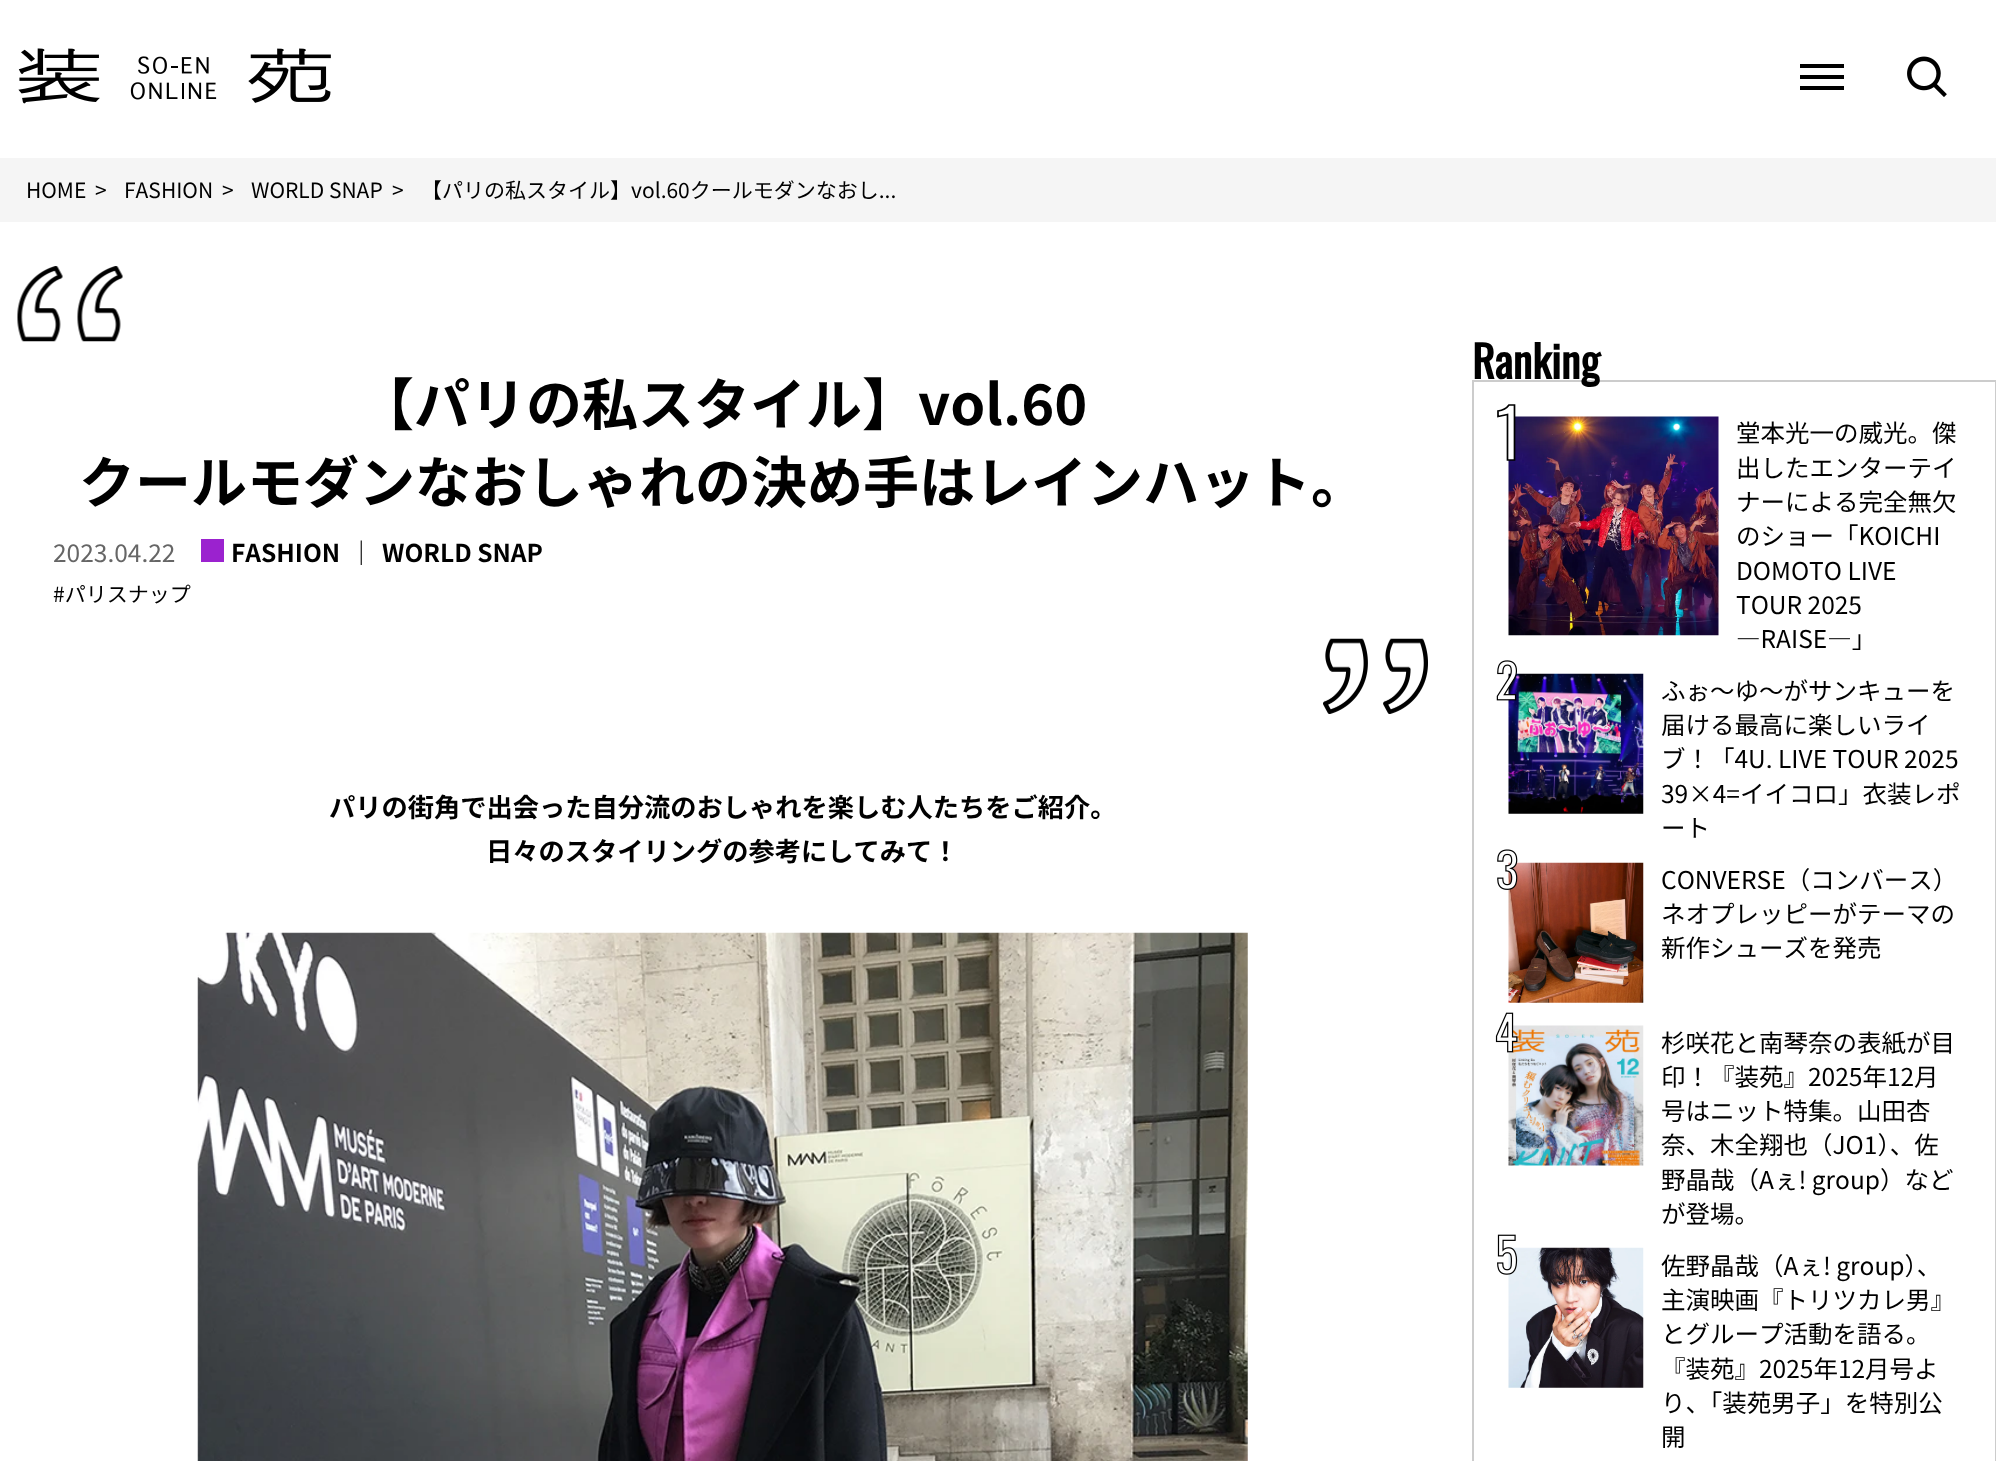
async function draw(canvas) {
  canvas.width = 1996;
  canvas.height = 1461;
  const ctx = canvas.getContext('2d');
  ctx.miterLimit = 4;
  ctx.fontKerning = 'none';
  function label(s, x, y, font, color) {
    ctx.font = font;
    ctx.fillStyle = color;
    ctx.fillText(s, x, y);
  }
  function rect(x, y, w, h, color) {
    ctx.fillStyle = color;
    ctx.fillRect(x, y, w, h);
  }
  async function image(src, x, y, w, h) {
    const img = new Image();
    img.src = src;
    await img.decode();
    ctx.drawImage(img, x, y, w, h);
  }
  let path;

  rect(0, 0, 1996, 1461, '#fff');
  await image('assets/img1.png', 18, 48, 313, 56);
  rect(1800, 64, 44, 4, '#000');
  rect(1800, 75, 44, 4, '#000');
  rect(1800, 86, 44, 4, '#000');
  await image('assets/img2.png', 1907, 56, 40, 41);
  rect(0, 158, 1996, 64, '#f5f5f5');
  label('HOME', 26, 198, '100 21px Noto Sans JP', '#000');
  label('>', 95, 198, '100 21px Noto Sans JP', '#000');
  label('FASHION', 124, 198, '100 21px Noto Sans JP', '#000');
  label('>', 222, 198, '100 21px Noto Sans JP', '#000');
  label('WORLD SNAP', 251, 198, '100 21px Noto Sans JP', '#000');
  label('>', 392, 198, '100 21px Noto Sans JP', '#000');
  label('【パリの私スタイル】vol.60クールモダンなおし...', 421, 198, '100 21px Noto Sans JP', '#000');
  await image('assets/img3.png', 17, 266, 106, 76);
  label('【パリの私スタイル】vol.60', 358, 425, 'bold 56px Noto Sans JP', '#000');
  label('クールモダンなおしゃれの決め手はレインハット。', 79, 503, 'bold 56px Noto Sans JP', '#000');
  label('2023.04.22', 53, 562, '100 24.5px Noto Sans JP', '#666');
  rect(201, 539, 23, 23, '#9b22cf');
  label('FASHION', 231, 562, 'bold 24.5px Noto Sans JP', '#000');
  label('｜', 349, 562, 'bold 24.5px Noto Sans JP', '#000');
  label('WORLD SNAP', 382, 562, 'bold 24.5px Noto Sans JP', '#000');
  label('#パリスナップ', 53, 602, '100 21px Noto Sans JP', '#000');
  await image('assets/img4.png', 1323, 638, 105, 76);
  label('パリの街角で出会った自分流のおしゃれを楽しむ人たちをご紹介。', 329, 817, 'bold 26.25px Noto Sans JP', '#000');
  label('日々のスタイリングの参考にしてみて！', 486, 861, 'bold 26.25px Noto Sans JP', '#000');
  await image('assets/img5.png', 197, 932, 1051, 529);
  ctx.strokeStyle = '#ccc';
  ctx.lineWidth = 2;
  ctx.strokeRect(1473, 381, 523, 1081);
  label('Ranking', 1472, 379, 'bold 44px Oswald', '#000');
  await image('assets/img6.png', 1508, 416, 211, 220);
  ctx.fillStyle = '#fff';
  path = new Path2D('M1507 460V415L1498 417V411C1502 410 1507 409 1509 405H1515V460Z');
  ctx.fill(path);
  path = new Path2D('M1507.5 460V414.5L1498 416.5V411C1502 410.5 1506.5 408.5 1509 405H1514.5V460Z');
  ctx.strokeStyle = '#000';
  ctx.lineWidth = 1.7;
  ctx.stroke(path);
  label('堂本光一の威光。傑', 1736, 442, '100 24.5px Noto Sans JP', '#000');
  label('出したエンターテイ', 1736, 477, '100 24.5px Noto Sans JP', '#000');
  label('ナーによる完全無欠', 1736, 511, '100 24.5px Noto Sans JP', '#000');
  label('のショー「KOICHI', 1736, 545, '100 24.5px Noto Sans JP', '#000');
  label('DOMOTO LIVE', 1736, 580, '100 24.5px Noto Sans JP', '#000');
  label('TOUR 2025', 1736, 614, '100 24.5px Noto Sans JP', '#000');
  label('―RAISE―」', 1736, 648, '100 24.5px Noto Sans JP', '#000');
  await image('assets/img8.png', 1508, 673, 136, 141);
  await image('assets/img7.png', 1496, 660, 21, 41);
  label('ふぉ〜ゆ〜がサンキューを', 1661, 700, '100 24.5px Noto Sans JP', '#000');
  label('届ける最高に楽しいライ', 1661, 734, '100 24.5px Noto Sans JP', '#000');
  label('ブ！「4U. LIVE TOUR 2025', 1661, 768, '100 24.5px Noto Sans JP', '#000');
  label('39×4=イイコロ」衣装レポ', 1661, 803, '100 24.5px Noto Sans JP', '#000');
  label('ート', 1661, 837, '100 24.5px Noto Sans JP', '#000');
  await image('assets/img10.png', 1508, 862, 136, 141);
  await image('assets/img9.png', 1497, 849, 21, 41);
  label('CONVERSE（コンバース）', 1661, 889, '100 24.5px Noto Sans JP', '#000');
  label('ネオプレッピーがテーマの', 1661, 923, '100 24.5px Noto Sans JP', '#000');
  label('新作シューズを発売', 1661, 957, '100 24.5px Noto Sans JP', '#000');
  await image('assets/img12.png', 1508, 1025, 136, 141);
  await image('assets/img11.png', 1495, 1012, 23, 41);
  label('杉咲花と南琴奈の表紙が目', 1661, 1052, '100 24.5px Noto Sans JP', '#000');
  label('印！『装苑』2025年12月', 1661, 1086, '100 24.5px Noto Sans JP', '#000');
  label('号はニット特集。山田杏', 1661, 1120, '100 24.5px Noto Sans JP', '#000');
  label('奈、木全翔也（JO1）、佐', 1661, 1154, '100 24.5px Noto Sans JP', '#000');
  label('野晶哉（Aぇ! group）など', 1661, 1189, '100 24.5px Noto Sans JP', '#000');
  label('が登場。', 1661, 1223, '100 24.5px Noto Sans JP', '#000');
  await image('assets/img14.png', 1508, 1247, 136, 141);
  await image('assets/img13.png', 1497, 1234, 21, 41);
  label('佐野晶哉（Aぇ! group）、', 1661, 1275, '100 24.5px Noto Sans JP', '#000');
  label('主演映画『トリツカレ男』', 1661, 1309, '100 24.5px Noto Sans JP', '#000');
  label('とグループ活動を語る。', 1661, 1343, '100 24.5px Noto Sans JP', '#000');
  label('『装苑』2025年12月号よ', 1661, 1378, '100 24.5px Noto Sans JP', '#000');
  label('り、「装苑男子」を特別公', 1661, 1412, '100 24.5px Noto Sans JP', '#000');
  label('開', 1661, 1446, '100 24.5px Noto Sans JP', '#000');
}

draw(document.querySelector('canvas'));
